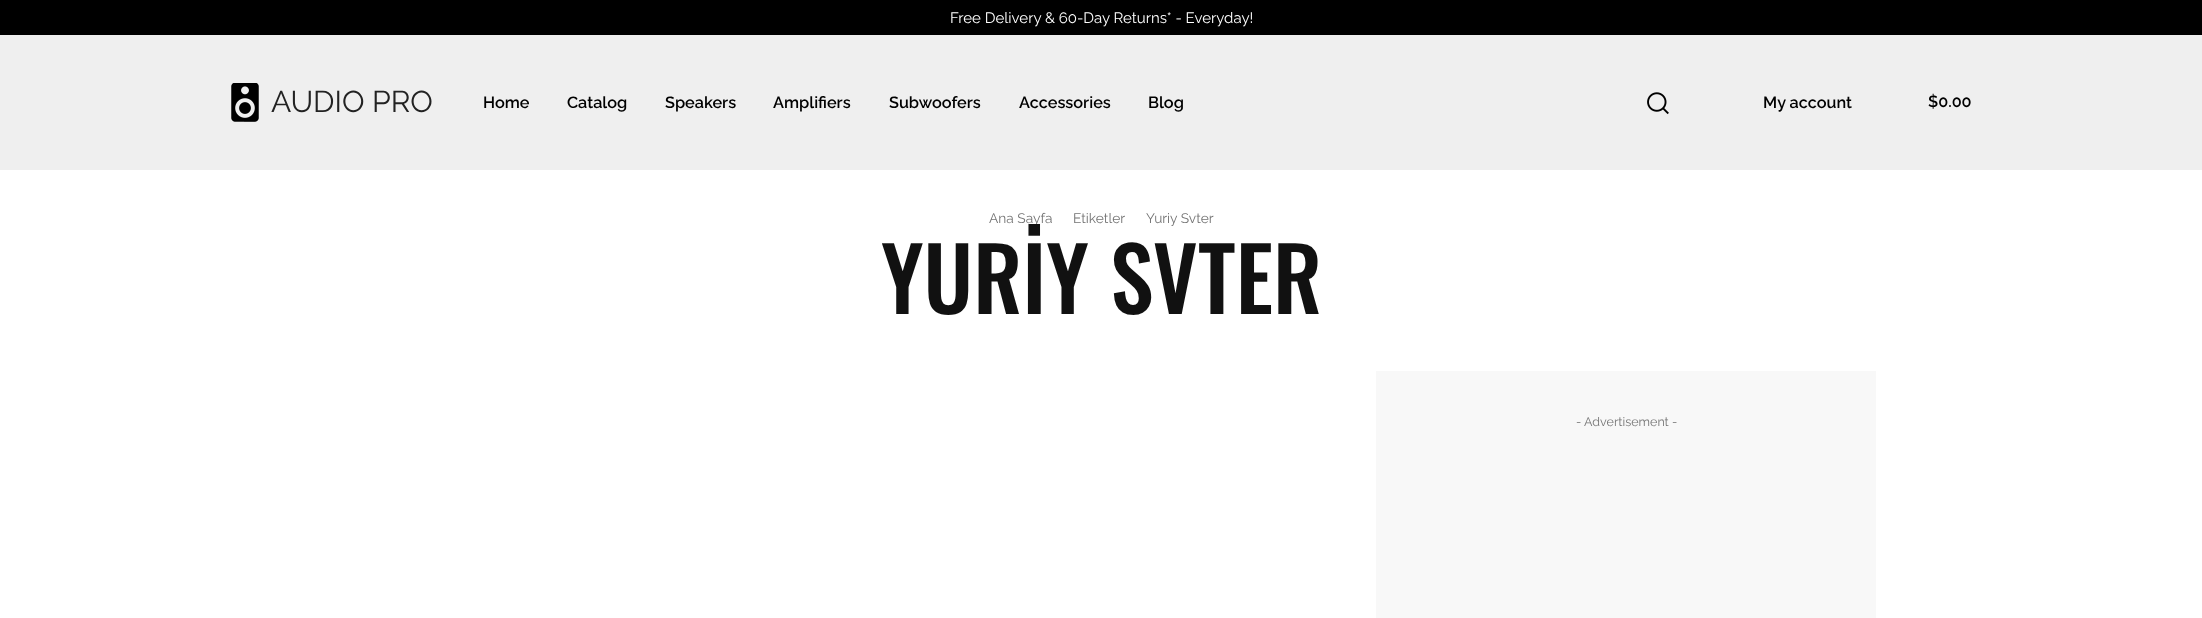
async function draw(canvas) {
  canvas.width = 2202;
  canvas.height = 618;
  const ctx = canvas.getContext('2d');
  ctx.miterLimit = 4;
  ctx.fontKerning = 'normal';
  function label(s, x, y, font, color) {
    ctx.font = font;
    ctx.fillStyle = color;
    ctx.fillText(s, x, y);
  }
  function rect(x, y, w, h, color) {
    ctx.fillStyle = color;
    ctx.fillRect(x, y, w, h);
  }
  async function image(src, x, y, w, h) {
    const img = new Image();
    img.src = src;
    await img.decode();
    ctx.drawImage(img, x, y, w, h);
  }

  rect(0, 0, 2202, 618, '#fff');
  rect(0, 0, 2202, 35, '#000');
  label('Free Delivery & 60-Day Returns* - Everyday!', 950, 23, '15px Raleway', '#fff');
  rect(0, 35, 2202, 135, '#efefef');
  await image('assets/img1.png', 231, 83, 28, 39);
  label('AUDIO PRO', 271, 112, '30px Raleway', '#222');
  label('Home', 483, 108, '600 16.25px Raleway', '#000');
  label('Catalog', 567, 108, '600 16.25px Raleway', '#000');
  label('Speakers', 665, 108, '600 16.25px Raleway', '#000');
  label('Amplifiers', 773, 108, '600 16.25px Raleway', '#000');
  label('Subwoofers', 889, 108, '600 16.25px Raleway', '#000');
  label('Accessories', 1019, 108, '600 16.25px Raleway', '#000');
  label('Blog', 1148, 108, '600 16.25px Raleway', '#000');
  await image('assets/img2.png', 1647, 92, 22, 23);
  label('My account', 1763, 108, '600 16.25px Raleway', '#000');
  label('$0.00', 1928, 107, '600 16.25px Raleway', '#000');
  label('Ana Sayfa', 989, 223, '13.75px Raleway', '#747474');
  label('Etiketler', 1073, 223, '13.75px Raleway', '#747474');
  label('Yuriy Svter', 1146, 223, '13.75px Raleway', '#747474');
  label('YURİY SVTER', 881, 314, '500 87.5px Oswald', '#111');
  rect(1376, 371, 500, 247, '#f8f8f8');
  label('- Advertisement -', 1576, 426, '12.5px Raleway', '#747474');
}

draw(document.querySelector('canvas'));
